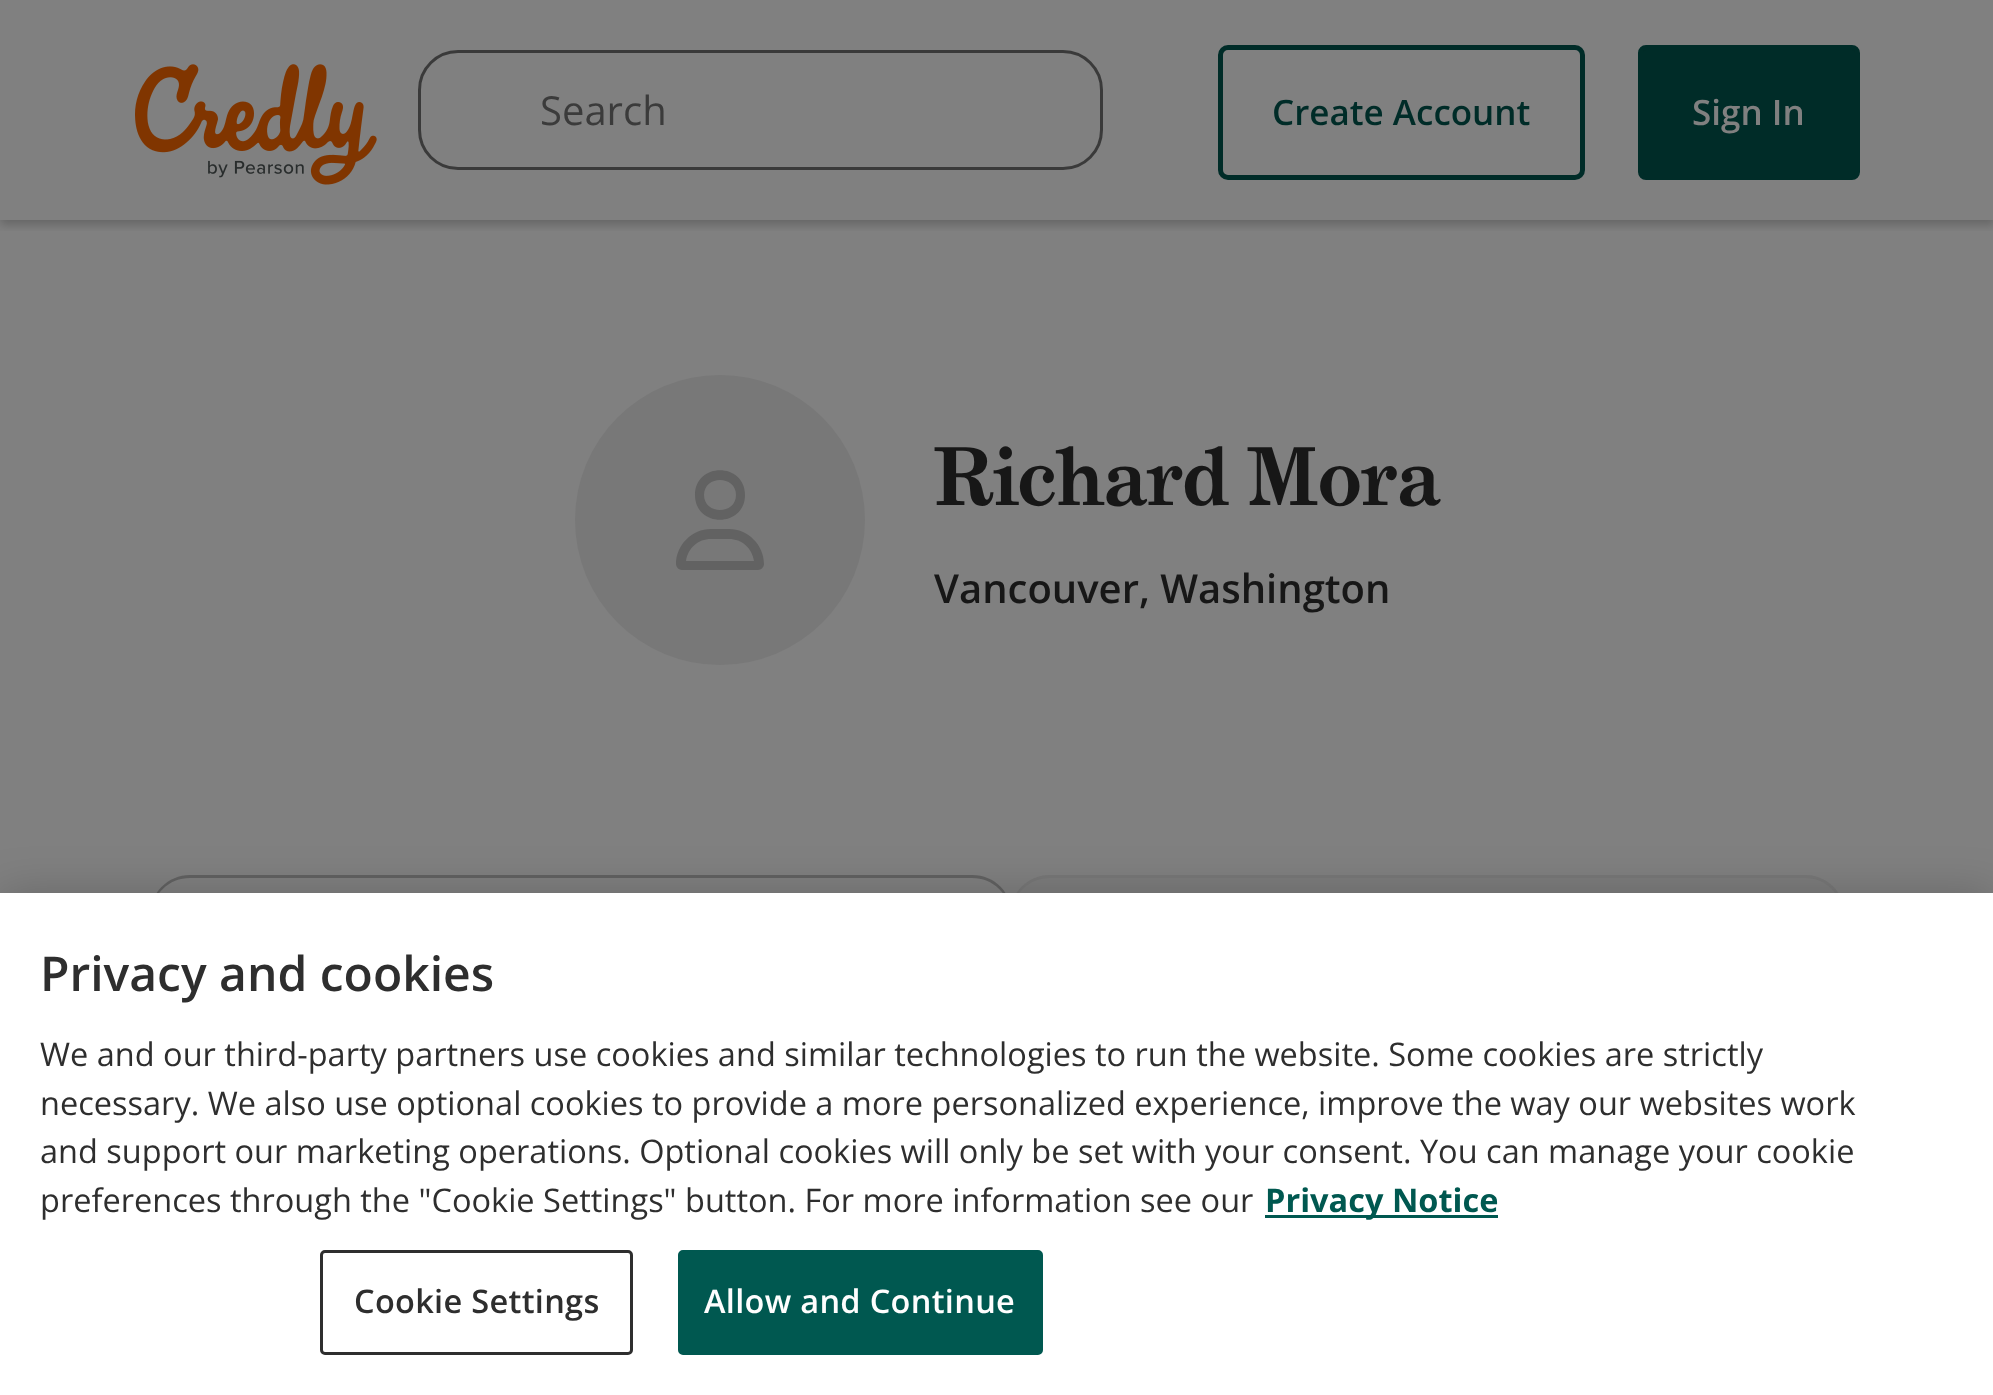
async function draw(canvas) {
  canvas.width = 1993;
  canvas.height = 1395;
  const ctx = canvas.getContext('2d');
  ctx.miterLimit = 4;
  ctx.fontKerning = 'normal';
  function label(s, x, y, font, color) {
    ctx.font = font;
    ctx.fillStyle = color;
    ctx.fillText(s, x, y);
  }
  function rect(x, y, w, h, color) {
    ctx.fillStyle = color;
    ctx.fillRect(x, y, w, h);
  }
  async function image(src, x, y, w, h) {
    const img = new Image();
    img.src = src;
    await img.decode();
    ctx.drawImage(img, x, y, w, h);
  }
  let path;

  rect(0, 0, 1993, 1395, '#808080');
  ctx.save();
  ctx.beginPath();
  ctx.rect(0, 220, 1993, 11);
  ctx.clip();
  ctx.fillStyle = '#00000033';
  ctx.filter = 'blur(5px)';
  ctx.beginPath();
  ctx.rect(0, 5, 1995, 220);
  ctx.fill();
  ctx.filter = 'none';
  ctx.restore();
  await image('assets/img1.png', 135, 64, 242, 121);
  ctx.beginPath();
  ctx.roundRect(419.5, 51.5, 682, 117, 38.5);
  ctx.strokeStyle = '#3a3a3a';
  ctx.lineWidth = 3;
  ctx.stroke();
  label('Search', 540, 125, '40px Open Sans', '#3b3b3b');
  ctx.beginPath();
  ctx.roundRect(1220.5, 47.5, 362, 130, 7.5);
  ctx.strokeStyle = '#002c28';
  ctx.lineWidth = 5;
  ctx.stroke();
  label('Create Account', 1272, 125, '600 35px Open Sans', '#002c28');
  ctx.beginPath();
  ctx.roundRect(1640.5, 47.5, 217, 130, 5.5);
  ctx.fill();
  ctx.stroke();
  label('Sign In', 1692, 125, '600 35px Open Sans', '#808080');
  ctx.fillStyle = '#787878';
  ctx.beginPath();
  ctx.arc(720, 520, 145, 0, 2 * Math.PI);
  ctx.fill();
  ctx.fillStyle = '#626262';
  path = new Path2D('M736 495C736 475 704 475 704 495C704 515 736 515 736 495ZM695 495C695 462 745 462 745 495C745 528 695 528 695 495ZM686 561H754C752 548 742 539 729 539H711C698 539 688 548 686 561ZM676 564C676 545 692 529 711 529H729C748 529 764 545 764 564C764 567 761 570 758 570H682C679 570 676 567 676 564Z');
  ctx.fill(path);
  label('Richard Mora', 934, 505, 'bold 80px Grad', '#171717');
  label('Vancouver, Washington', 934, 603, '600 40px Open Sans', '#171717');
  ctx.fillStyle = '#7d7d7d';
  ctx.beginPath();
  ctx.roundRect(1010, 875, 835, 173, [40, 40, 0, 0]);
  ctx.fill();
  ctx.fillStyle = '#787878';
  path = new Path2D('M1050 875H1805C1827 875 1845 893 1845 915V1048H1010V915C1010 893 1028 875 1050 875ZM1050 878H1805C1826 878 1842 894 1842 915V1048H1012V915C1012 894 1029 878 1050 878Z');
  ctx.fill(path, 'evenodd');
  ctx.fillStyle = '#808080';
  ctx.beginPath();
  ctx.roundRect(150, 875, 863, 173, [40, 40, 0, 0]);
  ctx.fill();
  ctx.fillStyle = '#626262';
  path = new Path2D('M190 875H972C995 875 1012 893 1012 915V1048H150V915C150 893 168 875 190 875ZM190 878H972C993 878 1010 894 1010 915V1048H152V915C152 894 169 878 190 878Z');
  ctx.fill(path, 'evenodd');
  ctx.fillStyle = '#00000033';
  ctx.filter = 'blur(22.5px)';
  ctx.beginPath();
  ctx.rect(0, 893, 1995, 502);
  ctx.fill();
  ctx.filter = 'none';
  rect(0, 893, 1993, 502, '#fff');
  label('Privacy and cookies', 40, 991, '600 48px Open Sans', '#2e2e2e');
  label('We and our third-party partners use cookies and similar technologies to run the website. Some cookies are strictly', 40, 1066, '32.52px Open Sans', '#2e2e2e');
  label('necessary. We also use optional cookies to provide a more personalized experience, improve the way our websites work', 40, 1115, '32.52px Open Sans', '#2e2e2e');
  label('and support our marketing operations. Optional cookies will only be set with your consent. You can manage your cookie', 40, 1163, '32.52px Open Sans', '#2e2e2e');
  label('preferences through the "Cookie Settings" button. For more information see our', 40, 1212, '32.52px Open Sans', '#2e2e2e');
  rect(1265, 1215, 233, 3, '#005850');
  label('Privacy Notice', 1265, 1212, 'bold 32.52px Open Sans', '#005850');
  ctx.beginPath();
  ctx.roundRect(321.5, 1251.5, 310, 102, 3.5);
  ctx.strokeStyle = '#2e2e2e';
  ctx.lineWidth = 3;
  ctx.stroke();
  ctx.letterSpacing = '0.3px';
  label('Cookie Settings', 354, 1313, '600 32.52px Open Sans', '#2e2e2e');
  ctx.fillStyle = '#005850';
  ctx.beginPath();
  ctx.roundRect(679.5, 1251.5, 362, 102, 3.5);
  ctx.fill();
  ctx.strokeStyle = '#005850';
  ctx.stroke();
  label('Allow and Continue', 704, 1313, '600 32.52px Open Sans', '#fefefe');
}

draw(document.querySelector('canvas'));
